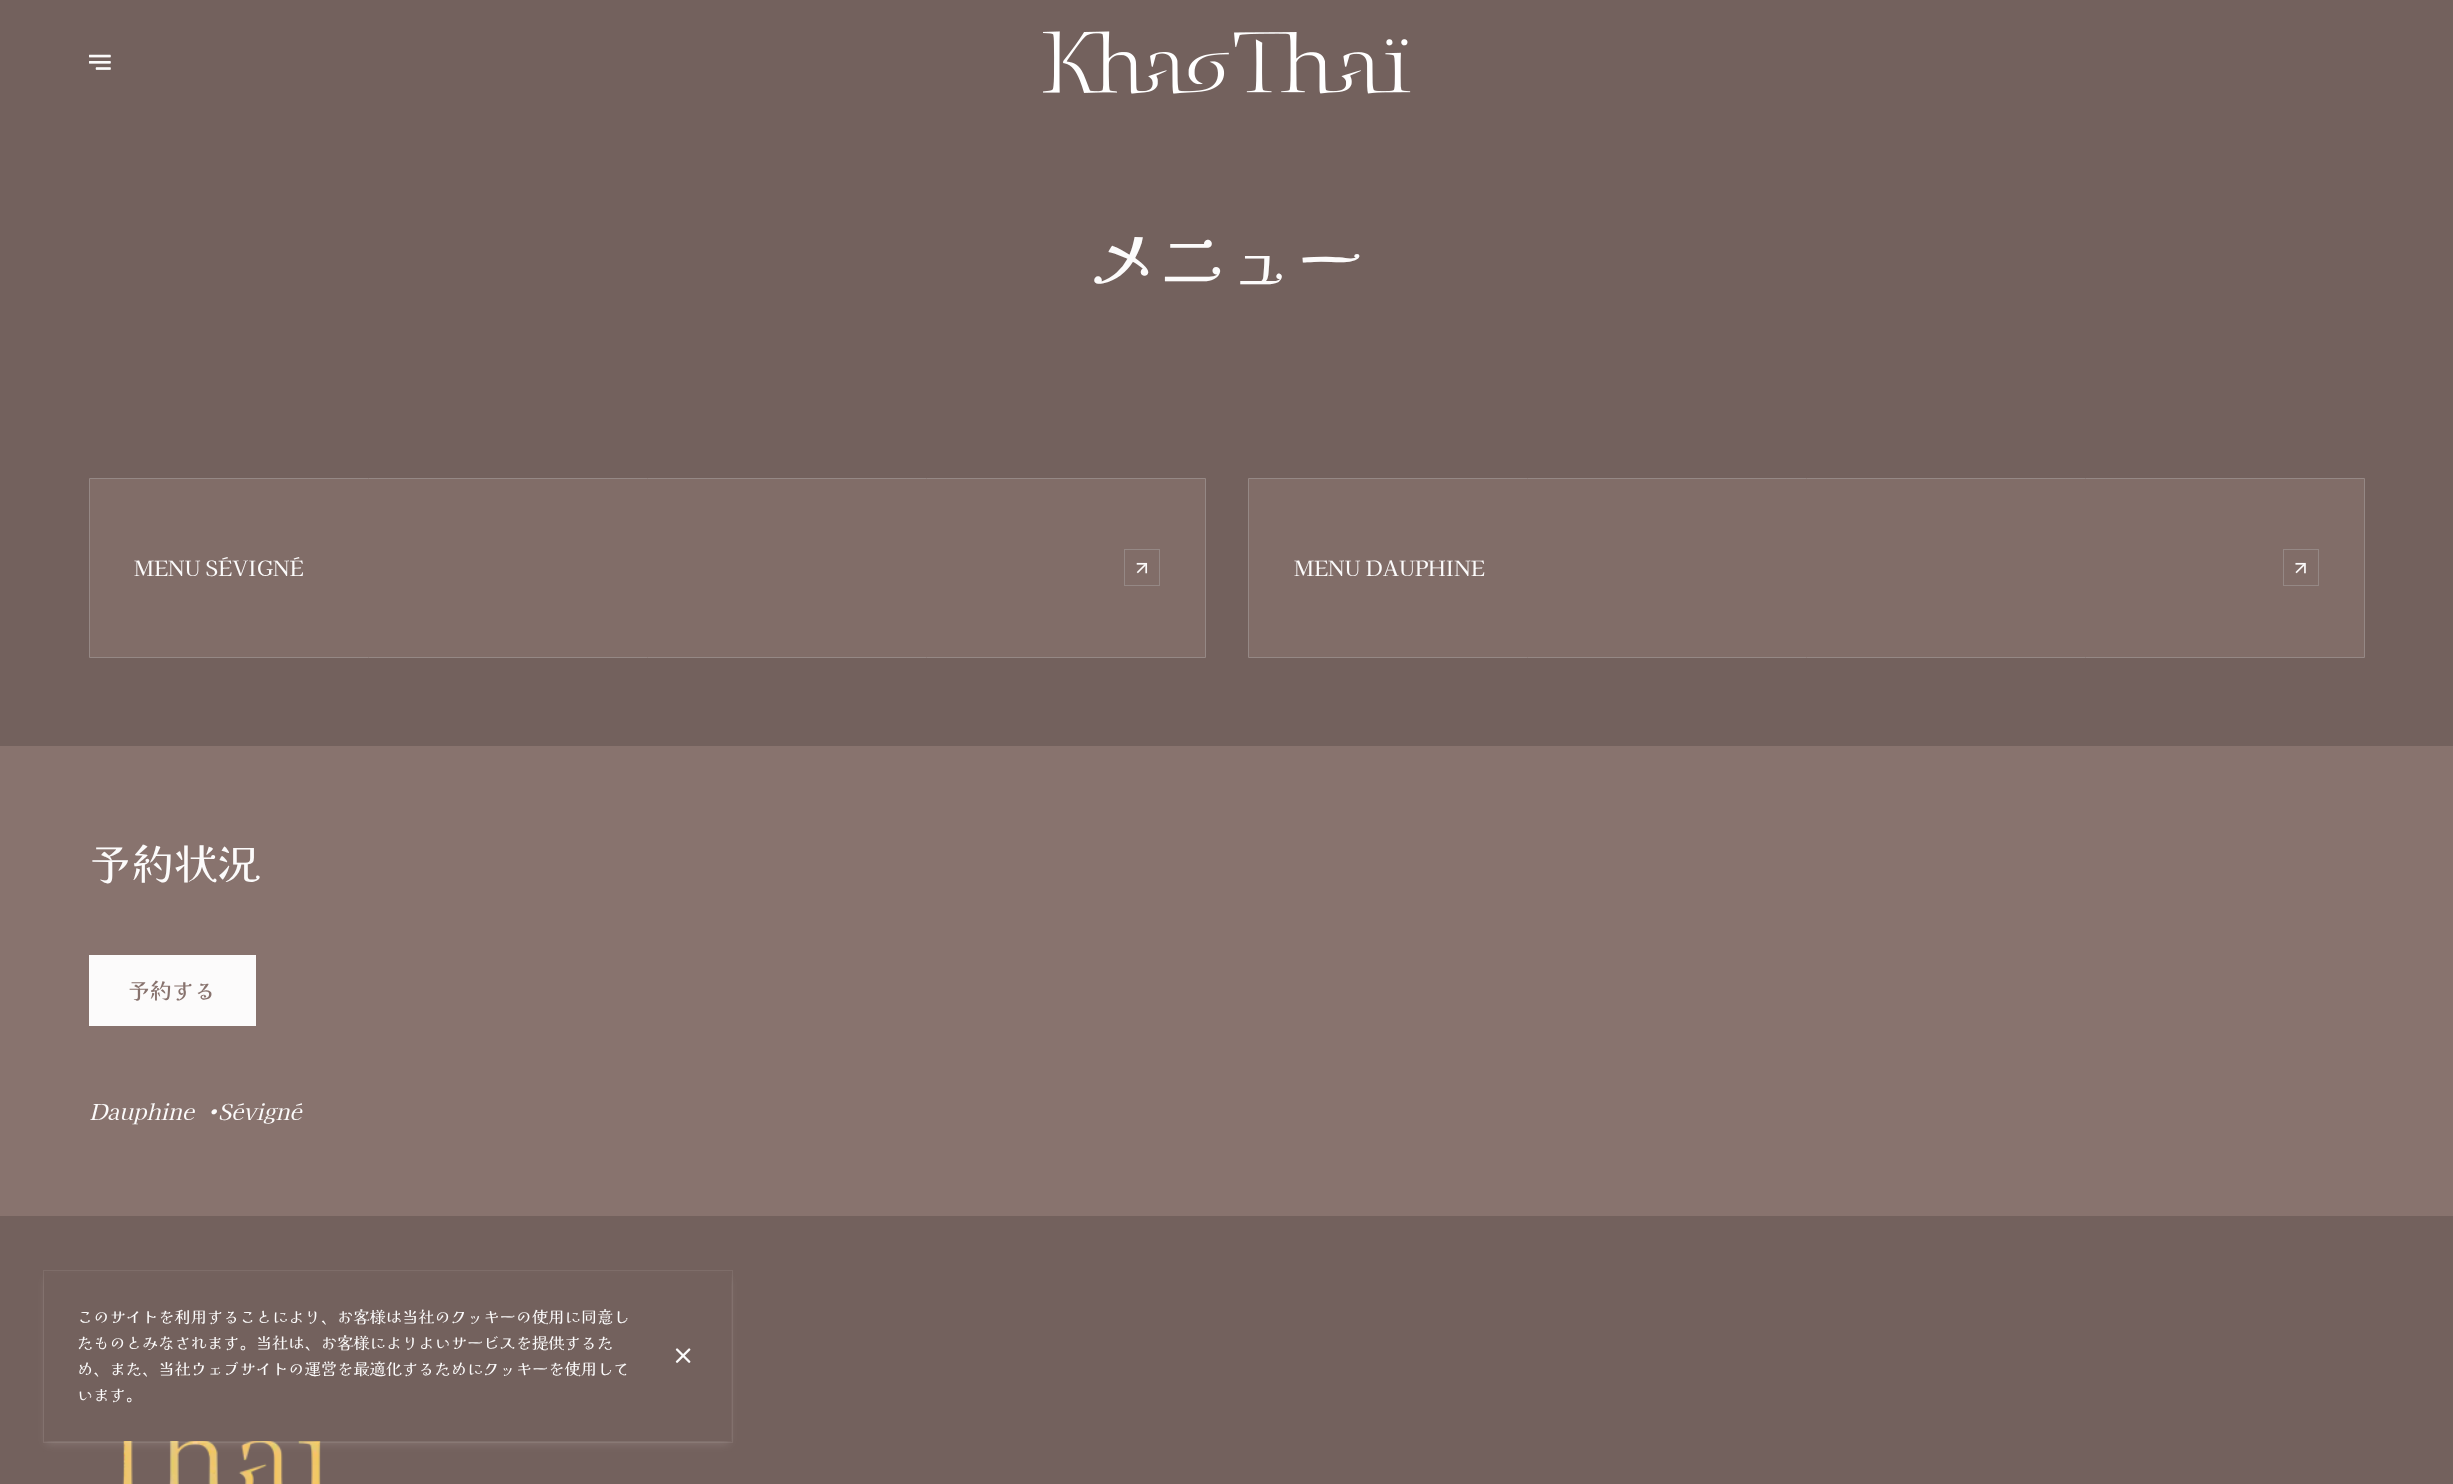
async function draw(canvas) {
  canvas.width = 2453;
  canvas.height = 1484;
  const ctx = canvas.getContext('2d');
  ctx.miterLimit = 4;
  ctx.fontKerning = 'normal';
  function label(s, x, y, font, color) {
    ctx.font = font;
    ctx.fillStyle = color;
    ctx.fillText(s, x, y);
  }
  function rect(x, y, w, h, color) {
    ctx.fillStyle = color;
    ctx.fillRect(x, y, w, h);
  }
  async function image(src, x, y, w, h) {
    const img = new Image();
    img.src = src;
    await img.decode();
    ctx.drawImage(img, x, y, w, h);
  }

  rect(0, 0, 2453, 1484, '#73615d');
  await image('assets/img1.png', 89, 54, 22, 16);
  await image('assets/img2.png', 1043, 31, 368, 63);
  label('メニュー', 1088, 286, '69.25px Kaisei Decol', '#fcfbfb');
  ctx.fillStyle = '#816d68';
  ctx.beginPath();
  ctx.rect(89.5, 478.5, 1116, 179);
  ctx.fill();
  ctx.strokeStyle = '#958885';
  ctx.stroke();
  label('MENU SÉVIGNÉ', 134, 576, '21px Kaisei Decol', '#fcfbfb');
  ctx.strokeRect(1124.5, 549.5, 35, 36);
  await image('assets/img3.png', 1136, 562, 12, 12);
  ctx.fillStyle = '#816d68';
  ctx.beginPath();
  ctx.rect(1248.5, 478.5, 1116, 179);
  ctx.fill();
  ctx.stroke();
  label('MENU DAUPHINE', 1294, 576, '21px Kaisei Decol', '#fcfbfb');
  ctx.strokeRect(2283.5, 549.5, 35, 36);
  await image('assets/img4.png', 2295, 562, 11, 12);
  rect(0, 746, 2453, 470, '#88736e');
  label('予約状況', 89, 880, '42.75px Kaisei Decol', '#fcfbfb');
  rect(89, 955, 167, 71, '#fcfbfb');
  label('予約する', 128, 999, '500 22px Kaisei Decol', '#88736e');
  label('Dauphine', 89, 1120, 'italic 22px Kaisei Decol', '#fcfbfb');
  label('•', 206, 1120, 'italic 22px Kaisei Decol', '#fcfbfb');
  label('Sévigné', 218, 1120, 'italic 22px Kaisei Decol', '#fcfbfb');
  await image('assets/img6.png', 122, 1441, 199, 43);
  ctx.strokeStyle = '#fcfbfb14';
  ctx.strokeRect(43.5, 1270.5, 689, 172);
  ctx.fillStyle = '#fcfbfb24';
  ctx.filter = 'blur(5px)';
  ctx.beginPath();
  ctx.rect(46, 1279, 683, 165);
  ctx.fill();
  ctx.filter = 'none';
  rect(44, 1273, 687, 168, '#73615d');
  label('このサイトを利用することにより、お客様は当社のクッキーの使用に同意し', 77, 1323, '16.25px Kaisei Decol', '#fcfbfb');
  label('たものとみなされます。当社は、お客様によりよいサービスを提供するた', 77, 1349, '16.25px Kaisei Decol', '#fcfbfb');
  label('め、また、当社ウェブサイトの運営を最適化するためにクッキーを使用して', 77, 1375, '16.25px Kaisei Decol', '#fcfbfb');
  label('います。', 77, 1401, '16.25px Kaisei Decol', '#fcfbfb');
  await image('assets/img5.png', 675, 1348, 16, 15);
}

draw(document.querySelector('canvas'));
